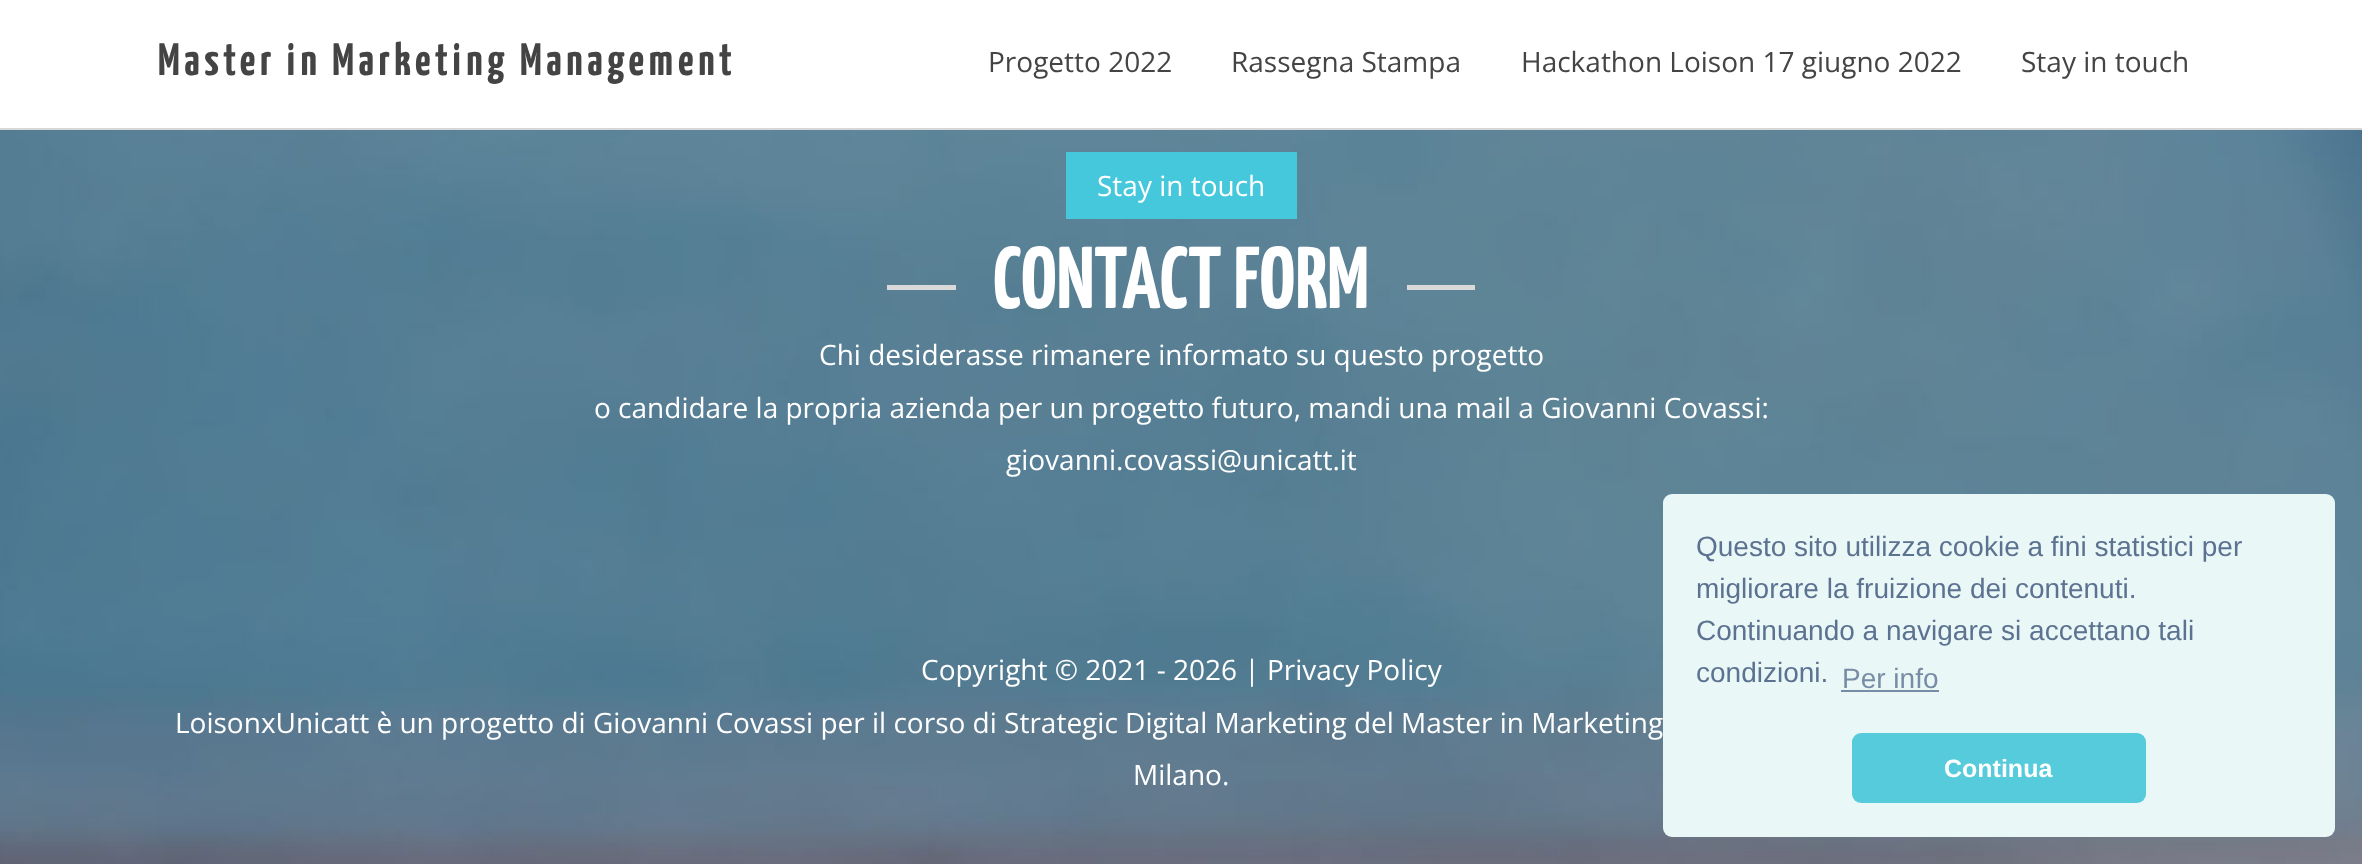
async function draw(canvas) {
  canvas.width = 2362;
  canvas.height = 864;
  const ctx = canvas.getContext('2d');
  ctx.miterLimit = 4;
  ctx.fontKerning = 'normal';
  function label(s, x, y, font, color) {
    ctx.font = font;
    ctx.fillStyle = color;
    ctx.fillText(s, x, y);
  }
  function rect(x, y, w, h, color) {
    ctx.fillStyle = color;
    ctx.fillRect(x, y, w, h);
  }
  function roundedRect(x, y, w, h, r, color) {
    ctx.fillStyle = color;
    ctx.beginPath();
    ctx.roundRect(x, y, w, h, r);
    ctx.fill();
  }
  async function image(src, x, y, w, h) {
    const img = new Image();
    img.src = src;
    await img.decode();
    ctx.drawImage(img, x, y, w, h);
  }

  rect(0, 0, 2362, 864, '#fff');
  rect(0, 128, 2362, 2, '#d7d7d7');
  ctx.letterSpacing = '4.55px';
  label('Master in Marketing Management', 158, 75, '200 45.5px Yanone Kaffeesatz', '#444');
  ctx.letterSpacing = '0px';
  label('Progetto 2022', 988, 72, '28px Open Sans', '#444');
  label('Rassegna Stampa', 1231, 72, '28px Open Sans', '#444');
  label('Hackathon Loison 17 giugno 2022', 1521, 72, '28px Open Sans', '#444');
  label('Stay in touch', 2021, 72, '28px Open Sans', '#444');
  await image('assets/img1.png', 0, 130, 2362, 734);
  rect(1066, 152, 231, 67, '#45c8dc');
  label('Stay in touch', 1097, 196, '28px Open Sans', '#fff');
  rect(887, 285, 69, 5, '#d9d9d9');
  label('CONTACT FORM', 993, 308, '200 87.5px Yanone Kaffeesatz', '#fff');
  rect(1407, 285, 68, 5, '#d9d9d9');
  label('Chi desiderasse rimanere informato su questo progetto', 819, 365, '28px Open Sans', '#fff');
  label('o candidare la propria azienda per un progetto futuro, mandi una mail a Giovanni Covassi:', 594, 418, '28px Open Sans', '#fff');
  label('giovanni.covassi@unicatt.it', 1006, 470, '28px Open Sans', '#fff');
  label('Copyright © 2021 - 2026 | Privacy Policy', 921, 680, '28px Open Sans', '#fff');
  label('LoisonxUnicatt è un progetto di Giovanni Covassi per il corso di Strategic Digital Marketing del Master in Marketing', 175, 733, '28px Open Sans', '#fff');
  label('Milano.', 1133, 785, '28px Open Sans', '#fff');
  roundedRect(1663, 494, 672, 343, 9, '#eaf7f7');
  label('Questo sito utilizza cookie a fini statistici per', 1696, 556, '28px Liberation Sans', '#5c7291');
  label('migliorare la fruizione dei contenuti.', 1696, 598, '28px Liberation Sans', '#5c7291');
  label('Continuando a navigare si accettano tali', 1696, 640, '28px Liberation Sans', '#5c7291');
  label('condizioni.', 1696, 682, '28px Liberation Sans', '#5c7291');
  label('Per info', 1842, 688, '28px Liberation Sans', '#788da5');
  rect(1841, 690, 98, 2, '#788da5');
  roundedRect(1852, 733, 294, 70, 9, '#56cbdb');
  label('Continua', 1944, 777, 'bold 25px Liberation Sans', '#fff');
}

draw(document.querySelector('canvas'));
